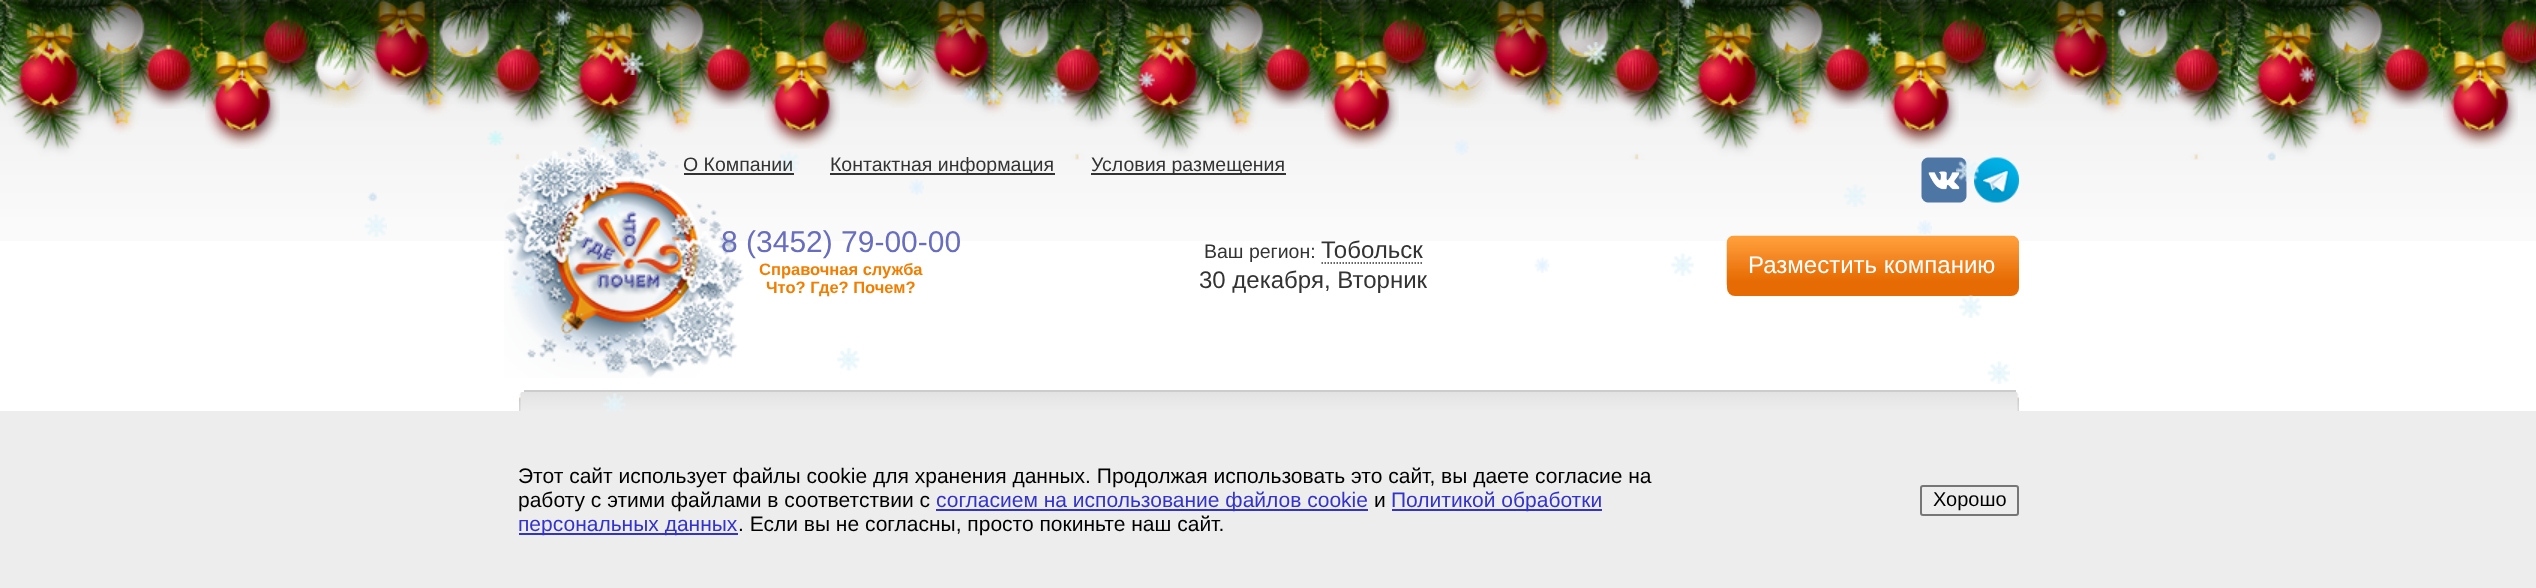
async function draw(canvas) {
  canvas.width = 2536;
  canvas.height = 588;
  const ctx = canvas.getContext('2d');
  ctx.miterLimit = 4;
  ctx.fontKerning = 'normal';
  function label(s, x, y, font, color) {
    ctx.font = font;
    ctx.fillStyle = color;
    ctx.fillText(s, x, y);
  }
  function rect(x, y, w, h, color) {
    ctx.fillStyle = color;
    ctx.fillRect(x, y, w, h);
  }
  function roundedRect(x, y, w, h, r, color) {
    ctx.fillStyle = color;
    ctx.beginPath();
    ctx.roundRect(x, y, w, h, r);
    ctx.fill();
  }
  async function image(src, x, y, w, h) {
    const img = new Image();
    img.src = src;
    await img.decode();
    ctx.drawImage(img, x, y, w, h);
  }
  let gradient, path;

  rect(0, 0, 2536, 588, '#fff');
  await image('assets/img1.png', 0, 0, 2536, 241);
  await image('assets/img92.png', 504, 135, 240, 243);
  await image('assets/img93.png', 1921, 157, 46, 46);
  await image('assets/img94.png', 1974, 157, 45, 46);
  await image('assets/img23.png', 0, 0, 2536, 160);
  await image('assets/img25.png', 10, 0, 77, 123);
  await image('assets/img24.png', 0, 0, 38, 107);
  await image('assets/img27.png', 81, 0, 73, 70);
  await image('assets/img26.png', 37, 0, 92, 40);
  await image('assets/img28.png', 205, 0, 75, 149);
  await image('assets/img29.png', 255, 0, 61, 80);
  await image('assets/img35.png', 306, 9, 67, 99);
  await image('assets/img30.png', 265, 0, 43, 46);
  await image('assets/img32.png', 365, 0, 73, 95);
  await image('assets/img31.png', 307, 0, 76, 75);
  await image('assets/img33.png', 431, 0, 69, 73);
  await image('assets/img34.png', 138, 13, 61, 96);
  await image('assets/img38.png', 487, 15, 62, 95);
  await image('assets/img36.png', 433, 0, 118, 42);
  await image('assets/img37.png', 550, 0, 10, 104);
  await image('assets/img40.png', 569, 0, 78, 123);
  await image('assets/img39.png', 559, 0, 38, 107);
  await image('assets/img42.png', 640, 0, 74, 70);
  await image('assets/img41.png', 597, 0, 91, 40);
  await image('assets/img43.png', 764, 0, 76, 149);
  await image('assets/img44.png', 814, 0, 61, 80);
  await image('assets/img50.png', 866, 9, 67, 99);
  await image('assets/img45.png', 825, 0, 42, 46);
  await image('assets/img47.png', 925, 0, 72, 95);
  await image('assets/img46.png', 867, 0, 75, 75);
  await image('assets/img48.png', 990, 0, 69, 73);
  await image('assets/img49.png', 697, 13, 62, 96);
  await image('assets/img53.png', 1047, 15, 62, 95);
  await image('assets/img51.png', 993, 0, 117, 42);
  await image('assets/img52.png', 1110, 0, 9, 104);
  await image('assets/img55.png', 1129, 0, 77, 123);
  await image('assets/img54.png', 1119, 0, 38, 107);
  await image('assets/img57.png', 1200, 0, 73, 70);
  await image('assets/img56.png', 1156, 0, 92, 40);
  await image('assets/img58.png', 1324, 0, 75, 149);
  await image('assets/img59.png', 1374, 0, 61, 80);
  await image('assets/img65.png', 1425, 9, 67, 99);
  await image('assets/img60.png', 1384, 0, 43, 46);
  await image('assets/img62.png', 1484, 0, 73, 95);
  await image('assets/img61.png', 1426, 0, 76, 75);
  await image('assets/img63.png', 1550, 0, 69, 73);
  await image('assets/img64.png', 1257, 13, 61, 96);
  await image('assets/img68.png', 1606, 15, 62, 95);
  await image('assets/img66.png', 1552, 0, 118, 42);
  await image('assets/img67.png', 1669, 0, 10, 104);
  await image('assets/img70.png', 1688, 0, 78, 123);
  await image('assets/img69.png', 1678, 0, 38, 107);
  await image('assets/img72.png', 1759, 0, 74, 70);
  await image('assets/img71.png', 1716, 0, 91, 40);
  await image('assets/img73.png', 1883, 0, 76, 149);
  await image('assets/img74.png', 1933, 0, 61, 80);
  await image('assets/img80.png', 1985, 9, 67, 99);
  await image('assets/img75.png', 1944, 0, 42, 46);
  await image('assets/img77.png', 2044, 0, 72, 95);
  await image('assets/img76.png', 1986, 0, 75, 75);
  await image('assets/img78.png', 2109, 0, 69, 73);
  await image('assets/img79.png', 1816, 13, 62, 96);
  await image('assets/img83.png', 2166, 15, 62, 95);
  await image('assets/img81.png', 2112, 0, 117, 42);
  await image('assets/img82.png', 2229, 0, 9, 104);
  await image('assets/img85.png', 2248, 0, 77, 123);
  await image('assets/img84.png', 2238, 0, 38, 107);
  await image('assets/img87.png', 2319, 0, 73, 70);
  await image('assets/img86.png', 2275, 0, 92, 40);
  await image('assets/img88.png', 2443, 0, 75, 149);
  await image('assets/img89.png', 2493, 0, 43, 80);
  await image('assets/img90.png', 2376, 13, 61, 96);
  await image('assets/img91.png', 2503, 0, 33, 42);
  ctx.fillStyle = '#000000bf';
  ctx.filter = 'blur(22.5px)';
  ctx.beginPath();
  ctx.rect(0, -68, 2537, 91);
  ctx.fill();
  ctx.filter = 'none';
  await image('assets/img2.png', 1679, 0, 16, 9);
  await image('assets/img3.png', 554, 9, 16, 17);
  await image('assets/img4.png', 2116, 7, 11, 10);
  await image('assets/img5.png', 1180, 35, 11, 11);
  await image('assets/img6.png', 1865, 30, 18, 17);
  await image('assets/img7.png', 621, 52, 23, 23);
  await image('assets/img8.png', 850, 58, 18, 18);
  await image('assets/img16.png', 1050, 84, 10, 10);
  await image('assets/img9.png', 1044, 82, 23, 23);
  await image('assets/img10.png', 1138, 71, 17, 17);
  await image('assets/img11.png', 1584, 42, 23, 23);
  await image('assets/img12.png', 2165, 79, 16, 17);
  await image('assets/img13.png', 2299, 66, 16, 17);
  await image('assets/img14.png', 963, 85, 15, 17);
  await image('assets/img15.png', 985, 87, 16, 17);
  await image('assets/img17.png', 487, 130, 17, 16);
  await image('assets/img18.png', 588, 127, 23, 23);
  await image('assets/img19.png', 1454, 139, 15, 16);
  await image('assets/img20.png', 630, 151, 10, 10);
  await image('assets/img21.png', 777, 151, 23, 22);
  await image('assets/img22.png', 2266, 151, 10, 10);
  label('О Компании', 683, 171, '19.5px Liberation Sans', '#333');
  rect(684, 173, 110, 2, '#333');
  rect(830, 173, 225, 2, '#333');
  label('Контактная информация', 830, 171, '19.5px Liberation Sans', '#333');
  rect(1091, 173, 195, 2, '#333');
  label('Условия размещения', 1091, 171, '19.5px Liberation Sans', '#333');
  label('8 (3452) 79-00-00', 721, 252, '30px Liberation Sans', '#686dbe');
  label('Справочная служба', 759, 275, 'bold 16.5px Liberation Sans', '#f17e00');
  label('Что? Где? Почем?', 766, 293, 'bold 16.5px Liberation Sans', '#f17e00');
  label('Ваш регион:', 1204, 258, '19.5px Liberation Sans', '#333');
  label('Тобольск', 1321, 258, '24px Liberation Sans', '#333');
  path = new Path2D('M1321.5 263H1422');
  ctx.strokeStyle = '#333';
  ctx.lineWidth = 1.5;
  ctx.setLineDash([1.5, 1.5]);
  ctx.stroke(path);
  roundedRect(1727, 236, 292, 60, 8, '#e66b04');
  await image('assets/img95.png', 1726, 235, 293, 50);
  label('Разместить компанию', 1748, 273, '24px Liberation Sans', '#fff');
  label('30 декабря, Вторник', 1199, 288, '24px Liberation Sans', '#333');
  ctx.save();
  ctx.beginPath();
  ctx.roundRect(519, 390, 1500, 54, [8, 8, 0, 0]);
  ctx.clip();
  gradient = ctx.createLinearGradient(1269, 391, 1269, 444);
  gradient.addColorStop(0, '#e2e2e2');
  gradient.addColorStop(1, '#fff');
  ctx.fillStyle = gradient;
  ctx.fillRect(519, 392, 1500, 19);
  ctx.restore();
  rect(524, 390, 1492, 2, '#ccc');
  await image('assets/img96.png', 519, 394, 2, 17);
  await image('assets/img97.png', 2017, 394, 2, 17);
  rect(0, 411, 2536, 177, '#ededed');
  label('Этот сайт использует файлы cookie для хранения данных. Продолжая использовать это сайт, вы даете согласие на', 518, 483, '21px Liberation Sans', '#000');
  label('работу с этими файлами в соответствии с', 518, 507, '21px Liberation Sans', '#000');
  rect(936, 509, 432, 2, '#33c');
  label('согласием на использование файлов cookie', 936, 507, '21px Liberation Sans', '#33c');
  label('и', 1374, 507, '21px Liberation Sans', '#000');
  rect(1392, 509, 210, 2, '#33c');
  label('Политикой обработки', 1391, 507, '21px Liberation Sans', '#33c');
  rect(519, 533, 219, 2, '#33c');
  label('персональных данных', 518, 531, '21px Liberation Sans', '#33c');
  label('. Если вы не согласны, просто покиньте наш сайт.', 738, 531, '21px Liberation Sans', '#000');
  ctx.beginPath();
  ctx.roundRect(1921, 486, 97, 29, 2);
  ctx.strokeStyle = '#767676';
  ctx.lineWidth = 2;
  ctx.setLineDash([]);
  ctx.stroke();
  label('Хорошо', 1933, 506, '20px Liberation Sans', '#000');
  await image('assets/img98.png', 1956, 159, 23, 23);
  await image('assets/img99.png', 367, 192, 11, 10);
  await image('assets/img100.png', 909, 179, 15, 16);
  await image('assets/img101.png', 1843, 184, 23, 23);
  await image('assets/img102.png', 600, 198, 22, 23);
  await image('assets/img103.png', 364, 214, 23, 23);
  await image('assets/img104.png', 1917, 220, 15, 16);
  await image('assets/img105.png', 1534, 257, 16, 16);
  await image('assets/img106.png', 1671, 253, 23, 23);
  await image('assets/img107.png', 511, 276, 23, 22);
  await image('assets/img108.png', 1959, 295, 23, 23);
  await image('assets/img109.png', 837, 348, 23, 23);
  await image('assets/img110.png', 1987, 361, 23, 23);
  await image('assets/img111.png', 603, 393, 23, 18);
}

draw(document.querySelector('canvas'));
